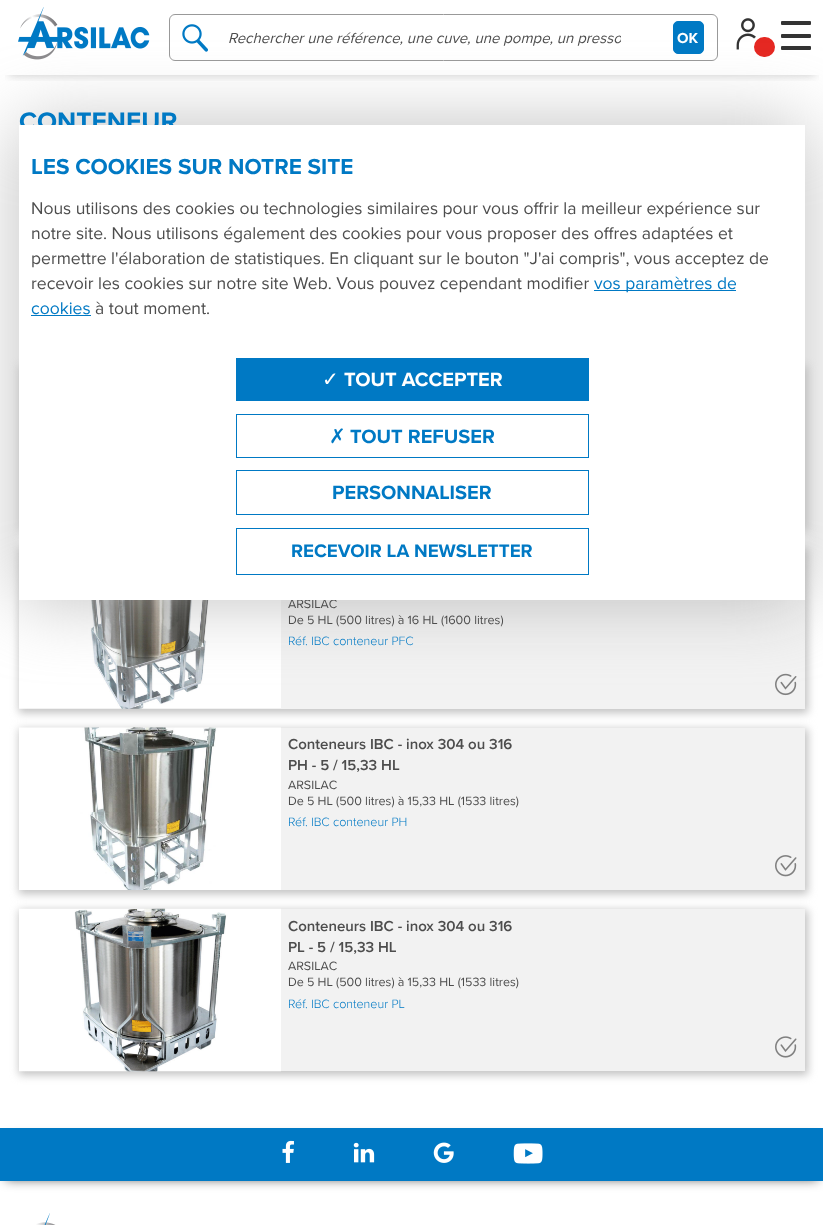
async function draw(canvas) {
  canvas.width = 823;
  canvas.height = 1225;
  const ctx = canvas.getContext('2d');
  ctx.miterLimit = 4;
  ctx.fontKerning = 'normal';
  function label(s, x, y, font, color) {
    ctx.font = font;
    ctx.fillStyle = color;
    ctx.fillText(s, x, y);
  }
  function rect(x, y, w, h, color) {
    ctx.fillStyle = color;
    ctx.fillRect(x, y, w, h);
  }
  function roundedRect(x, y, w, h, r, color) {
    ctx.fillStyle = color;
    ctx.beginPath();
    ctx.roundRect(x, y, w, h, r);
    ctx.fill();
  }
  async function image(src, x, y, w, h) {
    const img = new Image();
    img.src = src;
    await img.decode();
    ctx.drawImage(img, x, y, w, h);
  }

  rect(0, 0, 823, 1225, '#fff');
  ctx.save();
  ctx.beginPath();
  ctx.rect(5, 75, 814, 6);
  ctx.clip();
  ctx.fillStyle = '#00000033';
  ctx.filter = 'blur(5px)';
  ctx.beginPath();
  ctx.rect(9, 18, 806, 57);
  ctx.fill();
  ctx.filter = 'none';
  ctx.restore();
  await image('assets/img1.png', 18, 7, 132, 53);
  await image('assets/img3.png', 736, 18, 20, 32);
  ctx.fillStyle = '#e52822';
  ctx.beginPath();
  ctx.roundRect(752.5, 35.5, 24, 23, 11.5);
  ctx.fill();
  ctx.strokeStyle = '#fff';
  ctx.lineWidth = 3;
  ctx.stroke();
  roundedRect(781, 21, 30, 4, 1, '#333');
  roundedRect(781, 34, 30, 4, 1, '#333');
  roundedRect(781, 46, 30, 4, 1, '#333');
  ctx.fillStyle = '#c2c2c2';
  ctx.filter = 'blur(4px)';
  ctx.beginPath();
  ctx.rect(19, 548, 789, 165);
  ctx.fill();
  ctx.filter = 'none';
  await image('assets/img4.png', 19, 600, 262, 109);
  rect(281, 600, 524, 109, '#f2f2f2');
  await image('assets/img5.png', 775, 673, 22, 23);
  ctx.fillStyle = '#abababbf';
  ctx.filter = 'blur(36px)';
  ctx.beginPath();
  ctx.rect(19, 125, 786, 475);
  ctx.fill();
  ctx.filter = 'none';
  ctx.beginPath();
  ctx.roundRect(169.5, 14.5, 548, 46, 5.5);
  ctx.strokeStyle = '#999';
  ctx.lineWidth = 1;
  ctx.stroke();
  await image('assets/img2.png', 182, 24, 26, 28);
  ctx.save();
  ctx.beginPath();
  ctx.rect(229, 28, 392, 21);
  ctx.clip();
  label('Rechercher une référence, une cuve, une pompe, un presso', 228, 43, 'italic 15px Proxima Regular', '#4d4d4d');
  ctx.restore();
  ctx.fillStyle = '#0079c4';
  ctx.beginPath();
  ctx.roundRect(673.5, 21.5, 30, 32, 4.5);
  ctx.fill();
  ctx.strokeStyle = '#0079c4';
  ctx.stroke();
  label('OK', 677, 43, 'bold 15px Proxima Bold', '#fff');
  label('CONTENEUR', 19, 130, 'bold 26.25px Proxima Bold', '#0079c4');
  ctx.fillStyle = '#c2c2c2';
  ctx.filter = 'blur(4px)';
  ctx.beginPath();
  ctx.rect(19, 366, 789, 165);
  ctx.fill();
  ctx.filter = 'none';
  label('ARSILAC', 288, 608, '12.5px Proxima Regular', '#4d4d4d');
  label('De 5 HL (500 litres) à 16 HL (1600 litres)', 288, 624, '12.5px Proxima Regular', '#4d4d4d');
  label('Réf. IBC conteneur PFC', 288, 645, '300 12.5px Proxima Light', '#0079c4');
  ctx.fillStyle = '#c2c2c2';
  ctx.filter = 'blur(4px)';
  ctx.beginPath();
  ctx.rect(19, 729, 789, 165);
  ctx.fill();
  ctx.filter = 'none';
  await image('assets/img6.png', 19, 727, 262, 163);
  rect(281, 728, 524, 162, '#f2f2f2');
  label('Conteneurs IBC - inox 304 ou 316', 288, 749, '600 15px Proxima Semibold', '#4d4d4d');
  label('PH - 5 / 15,33 HL', 288, 770, '600 15px Proxima Semibold', '#4d4d4d');
  label('ARSILAC', 288, 789, '12.5px Proxima Regular', '#4d4d4d');
  label('De 5 HL (500 litres) à 15,33 HL (1533 litres)', 288, 805, '12.5px Proxima Regular', '#4d4d4d');
  label('Réf. IBC conteneur PH', 288, 826, '300 12.5px Proxima Light', '#0079c4');
  await image('assets/img7.png', 775, 855, 22, 22);
  ctx.fillStyle = '#c2c2c2';
  ctx.filter = 'blur(4px)';
  ctx.beginPath();
  ctx.rect(19, 910, 789, 165);
  ctx.fill();
  ctx.filter = 'none';
  await image('assets/img8.png', 19, 908, 262, 164);
  rect(281, 909, 524, 162, '#f2f2f2');
  label('Conteneurs IBC - inox 304 ou 316', 288, 931, '600 15px Proxima Semibold', '#4d4d4d');
  label('PL - 5 / 15,33 HL', 288, 952, '600 15px Proxima Semibold', '#4d4d4d');
  label('ARSILAC', 288, 970, '12.5px Proxima Regular', '#4d4d4d');
  label('De 5 HL (500 litres) à 15,33 HL (1533 litres)', 288, 986, '12.5px Proxima Regular', '#4d4d4d');
  label('Réf. IBC conteneur PL', 288, 1008, '300 12.5px Proxima Light', '#0079c4');
  await image('assets/img9.png', 775, 1036, 22, 22);
  rect(19, 125, 786, 475, '#fff');
  label('LES COOKIES SUR NOTRE SITE', 31, 174, 'bold 22.5px Proxima Bold', '#0079c4');
  label('Nous utilisons des cookies ou technologies similaires pour vous offrir la meilleur expérience sur', 31, 214, '17.5px Proxima Regular', '#4d4d4d');
  label('notre site. Nous utilisons également des cookies pour vous proposer des offres adaptées et', 31, 239, '17.5px Proxima Regular', '#4d4d4d');
  label('permettre l\'élaboration de statistiques. En cliquant sur le bouton "J\'ai compris", vous acceptez de', 31, 264, '17.5px Proxima Regular', '#4d4d4d');
  label('recevoir les cookies sur notre site Web. Vous pouvez cependant modifier', 31, 289, '17.5px Proxima Regular', '#4d4d4d');
  rect(594, 290, 142, 1, '#0079c4');
  label('vos paramètres de', 594, 289, '17.5px Proxima Regular', '#0079c4');
  label('cookies', 31, 314, '17.5px Proxima Regular', '#0079c4');
  rect(31, 315, 60, 1, '#0079c4');
  label('à tout moment.', 95, 314, '17.5px Proxima Regular', '#4d4d4d');
  rect(236, 358, 353, 43, '#0079c4');
  label('✓', 322, 386, '20px DejaVu Sans', '#fff');
  label('TOUT ACCEPTER', 344, 386, 'bold 20px Proxima Bold', '#fff');
  ctx.strokeRect(236.5, 414.5, 352, 43);
  label('✗', 329, 443, '20px DejaVu Sans', '#0079c4');
  label('TOUT REFUSER', 350, 443, 'bold 20px Proxima Bold', '#0079c4');
  ctx.strokeRect(236.5, 470.5, 352, 44);
  label('PERSONNALISER', 332, 499, 'bold 20px Proxima Bold', '#0079c4');
  ctx.strokeRect(236.5, 528.5, 352, 46);
  label('RECEVOIR LA NEWSLETTER', 291, 557, 'bold 18.75px Proxima Bold', '#0079c4');
  ctx.fillStyle = '#000000b3';
  ctx.filter = 'blur(6px)';
  ctx.beginPath();
  ctx.rect(6, 1138, 812, 41);
  ctx.fill();
  ctx.filter = 'none';
  rect(0, 1128, 823, 53, '#0079c4');
  await image('assets/img10.png', 282, 1140, 12, 23);
  await image('assets/img11.png', 353, 1142, 22, 21);
  await image('assets/img12.png', 433, 1142, 21, 21);
  await image('assets/img13.png', 513, 1143, 30, 21);
  await image('assets/img14.png', 36, 1213, 20, 12);
}

draw(document.querySelector('canvas'));
